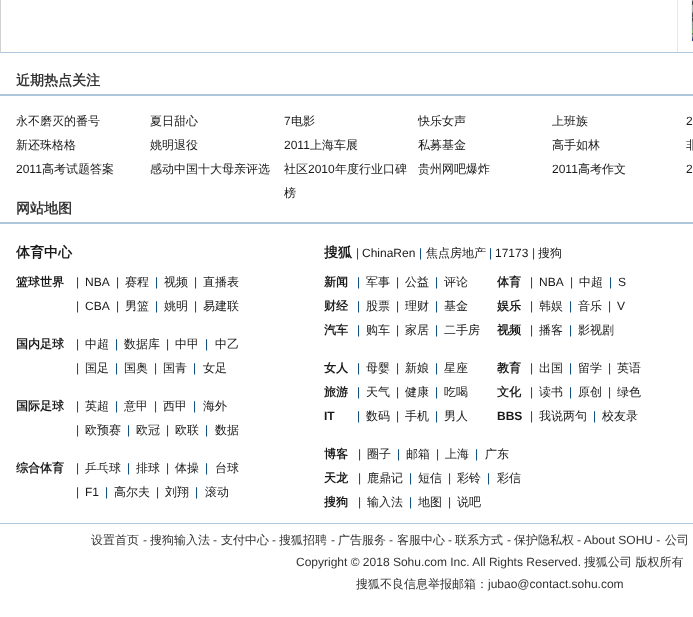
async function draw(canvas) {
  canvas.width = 693;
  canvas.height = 617;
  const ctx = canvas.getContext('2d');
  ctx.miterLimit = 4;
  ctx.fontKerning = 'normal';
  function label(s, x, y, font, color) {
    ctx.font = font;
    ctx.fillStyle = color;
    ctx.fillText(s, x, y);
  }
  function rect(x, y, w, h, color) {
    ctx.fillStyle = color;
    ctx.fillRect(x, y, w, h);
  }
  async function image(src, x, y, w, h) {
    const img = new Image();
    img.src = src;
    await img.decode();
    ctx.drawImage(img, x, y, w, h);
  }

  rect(0, 0, 693, 617, '#fff');
  rect(677, 0, 1, 53, '#e8e8e8');
  rect(0, 52, 693, 1, '#afc5db');
  rect(0, 0, 1, 53, '#d0d0d0');
  ctx.strokeStyle = '#f2f2f2';
  ctx.strokeRect(691.5, -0.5, 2, 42);
  await image('assets/img1.png', 692, 0, 1, 41);
  rect(0, 94, 693, 2, '#afc5db');
  label('近期热点关注', 16, 85, 'bold 14px WenQuanYi Zen Hei', '#333');
  label('永不磨灭的番号', 16, 125, '500 12px WenQuanYi Zen Hei', '#191919');
  label('夏日甜心', 150, 125, '500 12px WenQuanYi Zen Hei', '#191919');
  label('7', 284, 125, '12px Liberation Sans', '#191919');
  label('电影', 291, 125, '500 12px WenQuanYi Zen Hei', '#191919');
  label('快乐女声', 418, 125, '500 12px WenQuanYi Zen Hei', '#191919');
  label('上班族', 552, 125, '500 12px WenQuanYi Zen Hei', '#191919');
  label('2', 686, 125, '12px Liberation Sans', '#191919');
  label('新还珠格格', 16, 149, '500 12px WenQuanYi Zen Hei', '#191919');
  label('姚明退役', 150, 149, '500 12px WenQuanYi Zen Hei', '#191919');
  label('2011', 284, 149, '12px Liberation Sans', '#191919');
  label('上海车展', 310, 149, '500 12px WenQuanYi Zen Hei', '#191919');
  label('私募基金', 418, 149, '500 12px WenQuanYi Zen Hei', '#191919');
  label('高手如林', 552, 149, '500 12px WenQuanYi Zen Hei', '#191919');
  label('非', 686, 149, '500 12px WenQuanYi Zen Hei', '#191919');
  label('2011', 16, 173, '12px Liberation Sans', '#191919');
  label('高考试题答案', 42, 173, '500 12px WenQuanYi Zen Hei', '#191919');
  label('感动中国十大母亲评选', 150, 173, '500 12px WenQuanYi Zen Hei', '#191919');
  label('社区', 284, 173, '500 12px WenQuanYi Zen Hei', '#191919');
  label('2010', 308, 173, '12px Liberation Sans', '#191919');
  label('年度行业口碑', 335, 173, '500 12px WenQuanYi Zen Hei', '#191919');
  label('榜', 284, 197, '500 12px WenQuanYi Zen Hei', '#191919');
  label('贵州网吧爆炸', 418, 173, '500 12px WenQuanYi Zen Hei', '#191919');
  label('2011', 552, 173, '12px Liberation Sans', '#191919');
  label('高考作文', 578, 173, '500 12px WenQuanYi Zen Hei', '#191919');
  label('2', 686, 173, '12px Liberation Sans', '#191919');
  rect(0, 222, 693, 2, '#afc5db');
  label('网站地图', 16, 213, 'bold 14px WenQuanYi Zen Hei', '#333');
  label('体育中心', 16, 257, 'bold 14px WenQuanYi Zen Hei', '#191919');
  label('篮球世界', 16, 286, 'bold 12px WenQuanYi Zen Hei', '#191919');
  label('|', 76, 286, '12px Liberation Sans', '#004276');
  label('NBA', 85, 286, '12px Liberation Sans', '#191919');
  label('|', 116, 286, '12px Liberation Sans', '#004276');
  label('赛程', 125, 286, '500 12px WenQuanYi Zen Hei', '#191919');
  label('|', 155, 286, '12px Liberation Sans', '#004276');
  label('视频', 164, 286, '500 12px WenQuanYi Zen Hei', '#191919');
  label('|', 194, 286, '12px Liberation Sans', '#004276');
  label('直播表', 203, 286, '500 12px WenQuanYi Zen Hei', '#191919');
  label('|', 76, 310, '12px Liberation Sans', '#004276');
  label('CBA', 85, 310, '12px Liberation Sans', '#191919');
  label('|', 116, 310, '12px Liberation Sans', '#004276');
  label('男篮', 125, 310, '500 12px WenQuanYi Zen Hei', '#191919');
  label('|', 155, 310, '12px Liberation Sans', '#004276');
  label('姚明', 164, 310, '500 12px WenQuanYi Zen Hei', '#191919');
  label('|', 194, 310, '12px Liberation Sans', '#004276');
  label('易建联', 203, 310, '500 12px WenQuanYi Zen Hei', '#191919');
  label('国内足球', 16, 348, 'bold 12px WenQuanYi Zen Hei', '#191919');
  label('|', 76, 348, '12px Liberation Sans', '#004276');
  label('中超', 85, 348, '500 12px WenQuanYi Zen Hei', '#191919');
  label('|', 115, 348, '12px Liberation Sans', '#004276');
  label('数据库', 124, 348, '500 12px WenQuanYi Zen Hei', '#191919');
  label('|', 166, 348, '12px Liberation Sans', '#004276');
  label('中甲', 175, 348, '500 12px WenQuanYi Zen Hei', '#191919');
  label('|', 205, 348, '12px Liberation Sans', '#004276');
  label('中乙', 215, 348, '500 12px WenQuanYi Zen Hei', '#191919');
  label('|', 76, 372, '12px Liberation Sans', '#004276');
  label('国足', 85, 372, '500 12px WenQuanYi Zen Hei', '#191919');
  label('|', 115, 372, '12px Liberation Sans', '#004276');
  label('国奥', 124, 372, '500 12px WenQuanYi Zen Hei', '#191919');
  label('|', 154, 372, '12px Liberation Sans', '#004276');
  label('国青', 163, 372, '500 12px WenQuanYi Zen Hei', '#191919');
  label('|', 193, 372, '12px Liberation Sans', '#004276');
  label('女足', 203, 372, '500 12px WenQuanYi Zen Hei', '#191919');
  label('国际足球', 16, 410, 'bold 12px WenQuanYi Zen Hei', '#191919');
  label('|', 76, 410, '12px Liberation Sans', '#004276');
  label('英超', 85, 410, '500 12px WenQuanYi Zen Hei', '#191919');
  label('|', 115, 410, '12px Liberation Sans', '#004276');
  label('意甲', 124, 410, '500 12px WenQuanYi Zen Hei', '#191919');
  label('|', 154, 410, '12px Liberation Sans', '#004276');
  label('西甲', 163, 410, '500 12px WenQuanYi Zen Hei', '#191919');
  label('|', 193, 410, '12px Liberation Sans', '#004276');
  label('海外', 203, 410, '500 12px WenQuanYi Zen Hei', '#191919');
  label('|', 76, 434, '12px Liberation Sans', '#004276');
  label('欧预赛', 85, 434, '500 12px WenQuanYi Zen Hei', '#191919');
  label('|', 127, 434, '12px Liberation Sans', '#004276');
  label('欧冠', 136, 434, '500 12px WenQuanYi Zen Hei', '#191919');
  label('|', 166, 434, '12px Liberation Sans', '#004276');
  label('欧联', 175, 434, '500 12px WenQuanYi Zen Hei', '#191919');
  label('|', 205, 434, '12px Liberation Sans', '#004276');
  label('数据', 215, 434, '500 12px WenQuanYi Zen Hei', '#191919');
  label('综合体育', 16, 472, 'bold 12px WenQuanYi Zen Hei', '#191919');
  label('|', 76, 472, '12px Liberation Sans', '#004276');
  label('乒乓球', 85, 472, '500 12px WenQuanYi Zen Hei', '#191919');
  label('|', 127, 472, '12px Liberation Sans', '#004276');
  label('排球', 136, 472, '500 12px WenQuanYi Zen Hei', '#191919');
  label('|', 166, 472, '12px Liberation Sans', '#004276');
  label('体操', 175, 472, '500 12px WenQuanYi Zen Hei', '#191919');
  label('|', 205, 472, '12px Liberation Sans', '#004276');
  label('台球', 215, 472, '500 12px WenQuanYi Zen Hei', '#191919');
  label('|', 76, 496, '12px Liberation Sans', '#004276');
  label('F1', 85, 496, '12px Liberation Sans', '#191919');
  label('|', 105, 496, '12px Liberation Sans', '#004276');
  label('高尔夫', 114, 496, '500 12px WenQuanYi Zen Hei', '#191919');
  label('|', 156, 496, '12px Liberation Sans', '#004276');
  label('刘翔', 165, 496, '500 12px WenQuanYi Zen Hei', '#191919');
  label('|', 195, 496, '12px Liberation Sans', '#004276');
  label('滚动', 205, 496, '500 12px WenQuanYi Zen Hei', '#191919');
  label('搜狐', 324, 257, 'bold 14px WenQuanYi Zen Hei', '#191919');
  label('|', 356, 257, '12px Liberation Sans', '#004276');
  label('ChinaRen', 362, 257, '12px Liberation Sans', '#191919');
  label('|', 419, 257, '12px Liberation Sans', '#004276');
  label('焦点房地产', 426, 257, '500 12px WenQuanYi Zen Hei', '#191919');
  label('|', 489, 257, '12px Liberation Sans', '#004276');
  label('17173', 495, 257, '12px Liberation Sans', '#191919');
  label('|', 532, 257, '12px Liberation Sans', '#004276');
  label('搜狗', 538, 257, '500 12px WenQuanYi Zen Hei', '#191919');
  label('新闻', 324, 286, 'bold 12px WenQuanYi Zen Hei', '#191919');
  label('|', 357, 286, '12px Liberation Sans', '#004276');
  label('军事', 366, 286, '500 12px WenQuanYi Zen Hei', '#191919');
  label('|', 396, 286, '12px Liberation Sans', '#004276');
  label('公益', 405, 286, '500 12px WenQuanYi Zen Hei', '#191919');
  label('|', 435, 286, '12px Liberation Sans', '#004276');
  label('评论', 444, 286, '500 12px WenQuanYi Zen Hei', '#191919');
  label('体育', 497, 286, 'bold 12px WenQuanYi Zen Hei', '#191919');
  label('|', 530, 286, '12px Liberation Sans', '#004276');
  label('NBA', 539, 286, '12px Liberation Sans', '#191919');
  label('|', 570, 286, '12px Liberation Sans', '#004276');
  label('中超', 579, 286, '500 12px WenQuanYi Zen Hei', '#191919');
  label('|', 609, 286, '12px Liberation Sans', '#004276');
  label('S', 618, 286, '12px Liberation Sans', '#191919');
  label('财经', 324, 310, 'bold 12px WenQuanYi Zen Hei', '#191919');
  label('|', 357, 310, '12px Liberation Sans', '#004276');
  label('股票', 366, 310, '500 12px WenQuanYi Zen Hei', '#191919');
  label('|', 396, 310, '12px Liberation Sans', '#004276');
  label('理财', 405, 310, '500 12px WenQuanYi Zen Hei', '#191919');
  label('|', 435, 310, '12px Liberation Sans', '#004276');
  label('基金', 444, 310, '500 12px WenQuanYi Zen Hei', '#191919');
  label('娱乐', 497, 310, 'bold 12px WenQuanYi Zen Hei', '#191919');
  label('|', 530, 310, '12px Liberation Sans', '#004276');
  label('韩娱', 539, 310, '500 12px WenQuanYi Zen Hei', '#191919');
  label('|', 569, 310, '12px Liberation Sans', '#004276');
  label('音乐', 578, 310, '500 12px WenQuanYi Zen Hei', '#191919');
  label('|', 608, 310, '12px Liberation Sans', '#004276');
  label('V', 617, 310, '12px Liberation Sans', '#191919');
  label('汽车', 324, 334, 'bold 12px WenQuanYi Zen Hei', '#191919');
  label('|', 357, 334, '12px Liberation Sans', '#004276');
  label('购车', 366, 334, '500 12px WenQuanYi Zen Hei', '#191919');
  label('|', 396, 334, '12px Liberation Sans', '#004276');
  label('家居', 405, 334, '500 12px WenQuanYi Zen Hei', '#191919');
  label('|', 435, 334, '12px Liberation Sans', '#004276');
  label('二手房', 444, 334, '500 12px WenQuanYi Zen Hei', '#191919');
  label('视频', 497, 334, 'bold 12px WenQuanYi Zen Hei', '#191919');
  label('|', 530, 334, '12px Liberation Sans', '#004276');
  label('播客', 539, 334, '500 12px WenQuanYi Zen Hei', '#191919');
  label('|', 569, 334, '12px Liberation Sans', '#004276');
  label('影视剧', 578, 334, '500 12px WenQuanYi Zen Hei', '#191919');
  label('女人', 324, 372, 'bold 12px WenQuanYi Zen Hei', '#191919');
  label('|', 357, 372, '12px Liberation Sans', '#004276');
  label('母婴', 366, 372, '500 12px WenQuanYi Zen Hei', '#191919');
  label('|', 396, 372, '12px Liberation Sans', '#004276');
  label('新娘', 405, 372, '500 12px WenQuanYi Zen Hei', '#191919');
  label('|', 435, 372, '12px Liberation Sans', '#004276');
  label('星座', 444, 372, '500 12px WenQuanYi Zen Hei', '#191919');
  label('教育', 497, 372, 'bold 12px WenQuanYi Zen Hei', '#191919');
  label('|', 530, 372, '12px Liberation Sans', '#004276');
  label('出国', 539, 372, '500 12px WenQuanYi Zen Hei', '#191919');
  label('|', 569, 372, '12px Liberation Sans', '#004276');
  label('留学', 578, 372, '500 12px WenQuanYi Zen Hei', '#191919');
  label('|', 608, 372, '12px Liberation Sans', '#004276');
  label('英语', 617, 372, '500 12px WenQuanYi Zen Hei', '#191919');
  label('旅游', 324, 396, 'bold 12px WenQuanYi Zen Hei', '#191919');
  label('|', 357, 396, '12px Liberation Sans', '#004276');
  label('天气', 366, 396, '500 12px WenQuanYi Zen Hei', '#191919');
  label('|', 396, 396, '12px Liberation Sans', '#004276');
  label('健康', 405, 396, '500 12px WenQuanYi Zen Hei', '#191919');
  label('|', 435, 396, '12px Liberation Sans', '#004276');
  label('吃喝', 444, 396, '500 12px WenQuanYi Zen Hei', '#191919');
  label('文化', 497, 396, 'bold 12px WenQuanYi Zen Hei', '#191919');
  label('|', 530, 396, '12px Liberation Sans', '#004276');
  label('读书', 539, 396, '500 12px WenQuanYi Zen Hei', '#191919');
  label('|', 569, 396, '12px Liberation Sans', '#004276');
  label('原创', 578, 396, '500 12px WenQuanYi Zen Hei', '#191919');
  label('|', 608, 396, '12px Liberation Sans', '#004276');
  label('绿色', 617, 396, '500 12px WenQuanYi Zen Hei', '#191919');
  label('IT', 324, 420, 'bold 12px Liberation Sans', '#191919');
  label('|', 357, 420, '12px Liberation Sans', '#004276');
  label('数码', 366, 420, '500 12px WenQuanYi Zen Hei', '#191919');
  label('|', 396, 420, '12px Liberation Sans', '#004276');
  label('手机', 405, 420, '500 12px WenQuanYi Zen Hei', '#191919');
  label('|', 435, 420, '12px Liberation Sans', '#004276');
  label('男人', 444, 420, '500 12px WenQuanYi Zen Hei', '#191919');
  label('BBS', 497, 420, 'bold 12px Liberation Sans', '#191919');
  label('|', 530, 420, '12px Liberation Sans', '#004276');
  label('我说两句', 539, 420, '500 12px WenQuanYi Zen Hei', '#191919');
  label('|', 593, 420, '12px Liberation Sans', '#004276');
  label('校友录', 602, 420, '500 12px WenQuanYi Zen Hei', '#191919');
  label('博客', 324, 458, 'bold 12px WenQuanYi Zen Hei', '#191919');
  label('|', 358, 458, '12px Liberation Sans', '#004276');
  label('圈子', 367, 458, '500 12px WenQuanYi Zen Hei', '#191919');
  label('|', 397, 458, '12px Liberation Sans', '#004276');
  label('邮箱', 406, 458, '500 12px WenQuanYi Zen Hei', '#191919');
  label('|', 436, 458, '12px Liberation Sans', '#004276');
  label('上海', 445, 458, '500 12px WenQuanYi Zen Hei', '#191919');
  label('|', 475, 458, '12px Liberation Sans', '#004276');
  label('广东', 485, 458, '500 12px WenQuanYi Zen Hei', '#191919');
  label('天龙', 324, 482, 'bold 12px WenQuanYi Zen Hei', '#191919');
  label('|', 358, 482, '12px Liberation Sans', '#004276');
  label('鹿鼎记', 367, 482, '500 12px WenQuanYi Zen Hei', '#191919');
  label('|', 409, 482, '12px Liberation Sans', '#004276');
  label('短信', 418, 482, '500 12px WenQuanYi Zen Hei', '#191919');
  label('|', 448, 482, '12px Liberation Sans', '#004276');
  label('彩铃', 457, 482, '500 12px WenQuanYi Zen Hei', '#191919');
  label('|', 487, 482, '12px Liberation Sans', '#004276');
  label('彩信', 497, 482, '500 12px WenQuanYi Zen Hei', '#191919');
  label('搜狗', 324, 506, 'bold 12px WenQuanYi Zen Hei', '#191919');
  label('|', 358, 506, '12px Liberation Sans', '#004276');
  label('输入法', 367, 506, '500 12px WenQuanYi Zen Hei', '#191919');
  label('|', 409, 506, '12px Liberation Sans', '#004276');
  label('地图', 418, 506, '500 12px WenQuanYi Zen Hei', '#191919');
  label('|', 448, 506, '12px Liberation Sans', '#004276');
  label('说吧', 457, 506, '500 12px WenQuanYi Zen Hei', '#191919');
  rect(0, 523, 693, 1, '#afc5db');
  label('设置首页', 91, 544, '500 12px WenQuanYi Zen Hei', '#333');
  label('-', 143, 544, '12px Liberation Sans', '#333');
  label('搜狗输入法', 150, 544, '500 12px WenQuanYi Zen Hei', '#333');
  label('-', 213, 544, '12px Liberation Sans', '#333');
  label('支付中心', 221, 544, '500 12px WenQuanYi Zen Hei', '#333');
  label('-', 272, 544, '12px Liberation Sans', '#333');
  label('搜狐招聘', 279, 544, '500 12px WenQuanYi Zen Hei', '#333');
  label('-', 331, 544, '12px Liberation Sans', '#333');
  label('广告服务', 338, 544, '500 12px WenQuanYi Zen Hei', '#333');
  label('-', 389, 544, '12px Liberation Sans', '#333');
  label('客服中心', 397, 544, '500 12px WenQuanYi Zen Hei', '#333');
  label('-', 448, 544, '12px Liberation Sans', '#333');
  label('联系方式', 455, 544, '500 12px WenQuanYi Zen Hei', '#333');
  label('-', 507, 544, '12px Liberation Sans', '#333');
  label('保护隐私权', 514, 544, '500 12px WenQuanYi Zen Hei', '#333');
  label('- About SOHU -', 577, 544, '12px Liberation Sans', '#333');
  label('公司', 665, 544, '500 12px WenQuanYi Zen Hei', '#333');
  label('Copyright © 2018 Sohu.com Inc. All Rights Reserved.', 296, 566, '12px Liberation Sans', '#333');
  label('搜狐公司 版权所有', 584, 566, '500 12px WenQuanYi Zen Hei', '#333');
  label('搜狐不良信息举报邮箱：', 356, 588, '500 12px WenQuanYi Zen Hei', '#333');
  label('jubao@contact.sohu.com', 488, 588, '12px Liberation Sans', '#333');
}

draw(document.querySelector('canvas'));
